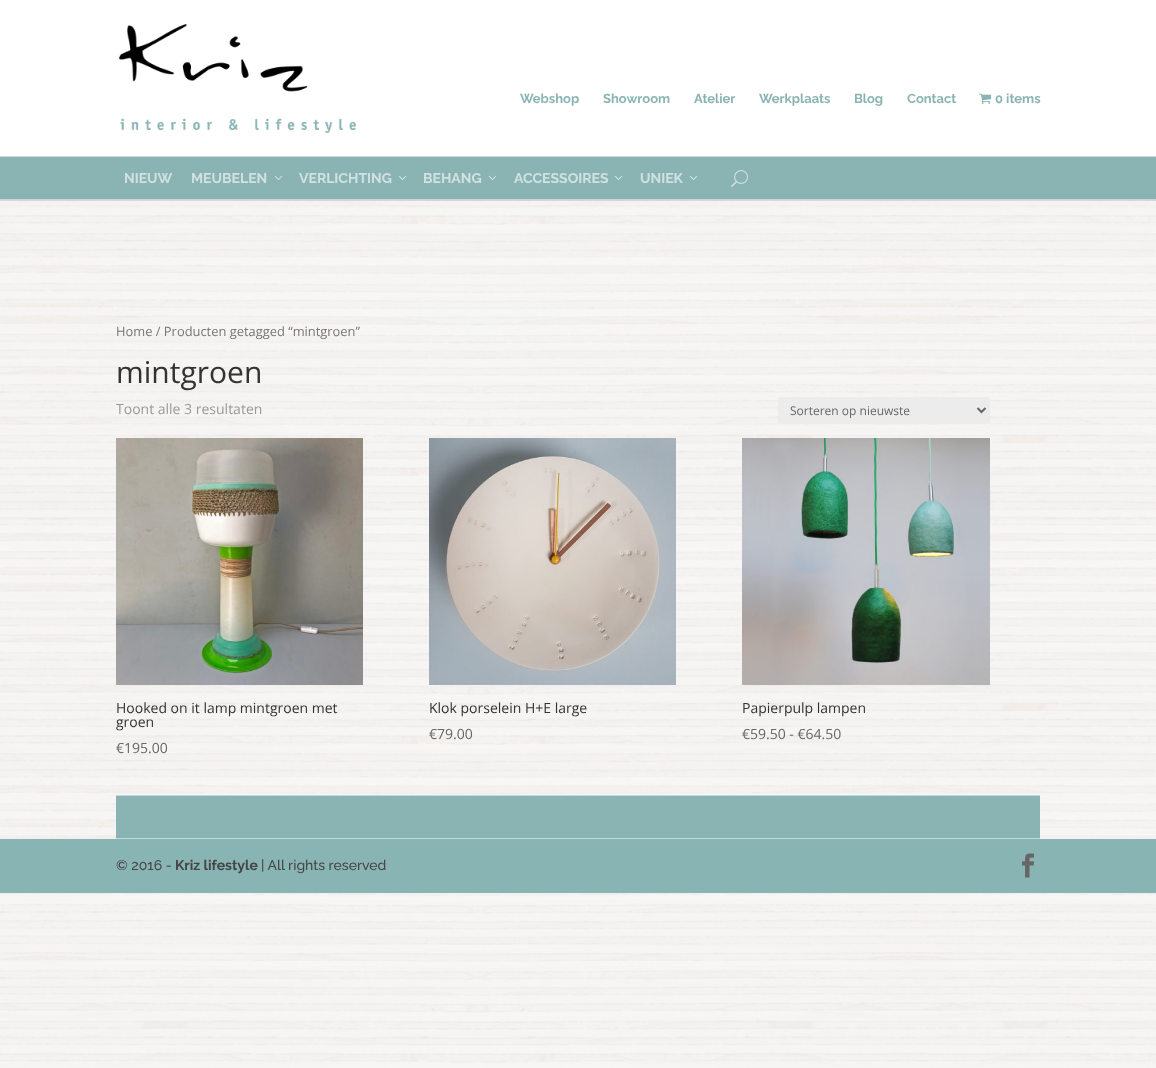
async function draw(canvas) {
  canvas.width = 1156;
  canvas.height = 1068;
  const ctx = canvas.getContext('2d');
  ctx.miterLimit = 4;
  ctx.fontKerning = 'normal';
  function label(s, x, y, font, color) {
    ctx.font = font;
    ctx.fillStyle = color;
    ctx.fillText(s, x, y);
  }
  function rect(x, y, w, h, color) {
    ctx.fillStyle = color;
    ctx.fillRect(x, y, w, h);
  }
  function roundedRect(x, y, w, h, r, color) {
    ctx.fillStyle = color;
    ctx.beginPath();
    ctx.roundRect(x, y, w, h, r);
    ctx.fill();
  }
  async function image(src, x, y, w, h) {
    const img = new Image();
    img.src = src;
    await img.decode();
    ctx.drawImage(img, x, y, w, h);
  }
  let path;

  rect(0, 0, 1156, 1068, '#fff');
  await image('assets/img1.png', 0, 200, 1156, 868);
  rect(0, 200, 1156, 1, '#0000001a');
  await image('assets/img2.png', 119, 24, 237, 109);
  label('Webshop', 520, 103, 'bold 13px Raleway', '#8ab4b4');
  label('Showroom', 603, 103, 'bold 13px Raleway', '#8ab4b4');
  label('Atelier', 694, 103, 'bold 13px Raleway', '#8ab4b4');
  label('Werkplaats', 759, 103, 'bold 13px Raleway', '#8ab4b4');
  label('Blog', 854, 103, 'bold 13px Raleway', '#8ab4b4');
  label('Contact', 907, 103, 'bold 13px Raleway', '#8ab4b4');
  await image('assets/img3.png', 979, 93, 13, 11);
  label('0 items', 995, 103, 'bold 13px Raleway', '#8ab4b4');
  rect(0, 157, 1156, 42, '#8ab4b4');
  label('NIEUW', 124, 183, 'bold 14px Raleway', '#d0e1e1');
  label('MEUBELEN', 191, 183, 'bold 14px Raleway', '#d0e1e1');
  await image('assets/img4.png', 274, 175, 9, 5);
  label('VERLICHTING', 299, 183, 'bold 14px Raleway', '#d0e1e1');
  await image('assets/img4.png', 398, 175, 9, 5);
  label('BEHANG', 423, 183, 'bold 14px Raleway', '#d0e1e1');
  await image('assets/img4.png', 488, 175, 9, 5);
  label('ACCESSOIRES', 514, 183, 'bold 14px Raleway', '#d0e1e1');
  await image('assets/img4.png', 614, 175, 9, 5);
  label('UNIEK', 640, 183, 'bold 14px Raleway', '#d0e1e1');
  await image('assets/img4.png', 689, 175, 9, 5);
  await image('assets/img5.png', 731, 170, 17, 17);
  rect(0, 156, 1156, 1, '#c4d9d9');
  rect(0, 199, 1156, 1, '#c4d9d9');
  label('Home / Producten getagged “mintgroen”', 116, 336, '12.9px Open Sans', '#767676');
  label('mintgroen', 116, 383, '30px Open Sans', '#333');
  rect(116, 796, 924, 42, '#8ab4b4');
  rect(116, 795, 924, 1, '#c4d9d9');
  rect(116, 838, 924, 1, '#c4d9d9');
  label('Toont alle 3 resultaten', 116, 414, '14px Open Sans', '#999');
  roundedRect(778, 397, 212, 27, 3, '#ececec');
  path = new Path2D('M977.5 408L981.5 412L985.5 408');
  ctx.strokeStyle = '#666';
  ctx.lineWidth = 2;
  ctx.stroke(path);
  label('Sorteren op nieuwste', 790, 415, '12px Open Sans', '#666');
  await image('assets/img6.png', 116, 438, 247, 247);
  label('Hooked on it lamp mintgroen met', 116, 713, '14px Open Sans', '#333');
  label('groen', 116, 727, '14px Open Sans', '#333');
  label('€195.00', 116, 753, '14px Open Sans', '#666');
  await image('assets/img7.png', 429, 438, 247, 247);
  label('Klok porselein H+E large', 429, 713, '14px Open Sans', '#333');
  label('€79.00', 429, 739, '14px Open Sans', '#666');
  await image('assets/img8.png', 742, 438, 248, 247);
  label('Papierpulp lampen', 742, 713, '14px Open Sans', '#333');
  label('€59.50 - €64.50', 742, 739, '14px Open Sans', '#666');
  rect(0, 839, 1156, 54, '#89b4b4');
  label('© 2016 -', 116, 870, '500 14px Raleway', '#454545');
  label('Kriz lifestyle', 175, 870, 'bold 14px Raleway', '#454545');
  label('| All rights reserved', 261, 870, '500 14px Raleway', '#454545');
  await image('assets/img9.png', 1022, 853, 12, 25);
}

draw(document.querySelector('canvas'));
